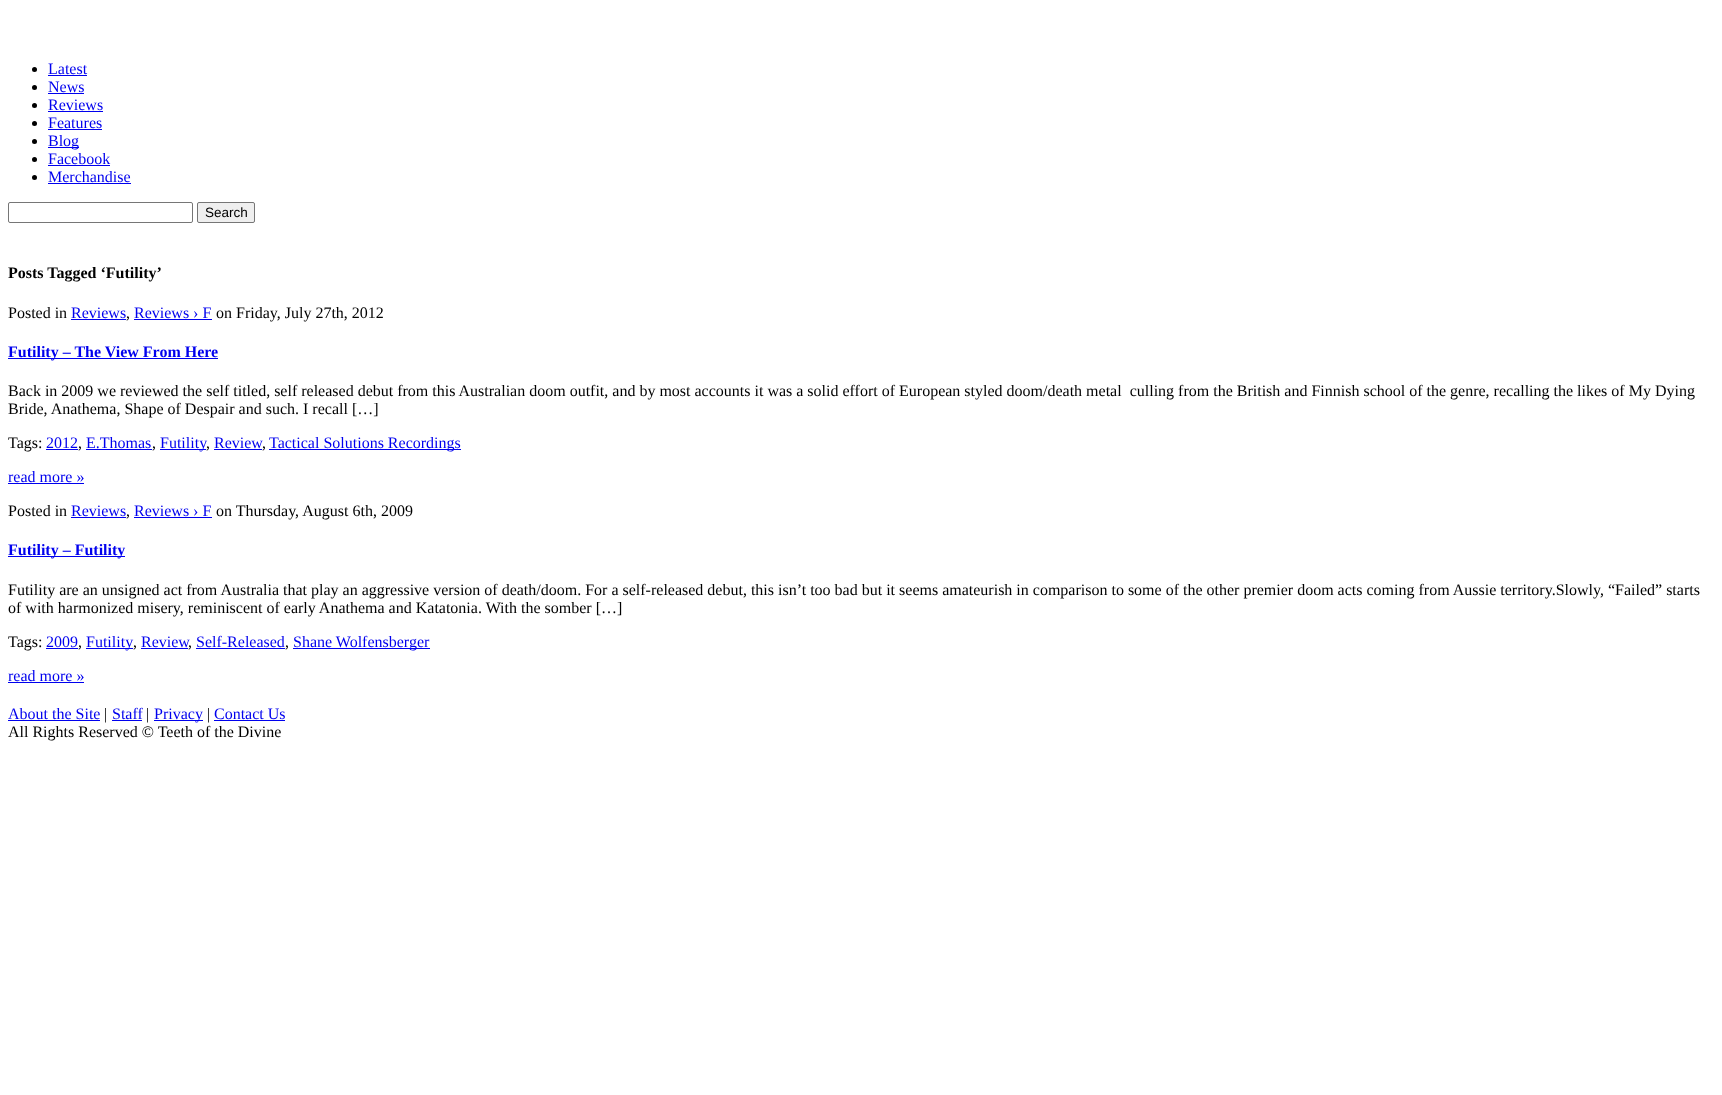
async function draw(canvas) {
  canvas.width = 1722;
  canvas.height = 1095;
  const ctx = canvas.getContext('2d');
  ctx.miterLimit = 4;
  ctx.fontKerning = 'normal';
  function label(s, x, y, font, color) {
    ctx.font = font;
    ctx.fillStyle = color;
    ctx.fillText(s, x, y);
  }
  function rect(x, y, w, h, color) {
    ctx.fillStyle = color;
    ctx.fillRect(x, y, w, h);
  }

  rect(0, 0, 1722, 1095, '#fff');
  ctx.fillStyle = '#000';
  ctx.beginPath();
  ctx.arc(34.5, 69.5, 2.5, 0, 2 * Math.PI);
  ctx.fill();
  label('Latest', 48, 74, '16px Liberation Serif', '#00e');
  rect(48, 75, 39, 1, '#00e');
  ctx.fillStyle = '#000';
  ctx.beginPath();
  ctx.arc(34.5, 87.5, 2.5, 0, 2 * Math.PI);
  ctx.fill();
  label('News', 48, 92, '16px Liberation Serif', '#00e');
  rect(48, 93, 36, 1, '#00e');
  ctx.fillStyle = '#000';
  ctx.beginPath();
  ctx.arc(34.5, 105.5, 2.5, 0, 2 * Math.PI);
  ctx.fill();
  label('Reviews', 48, 110, '16px Liberation Serif', '#00e');
  rect(48, 111, 55, 1, '#00e');
  ctx.fillStyle = '#000';
  ctx.beginPath();
  ctx.arc(34.5, 123.5, 2.5, 0, 2 * Math.PI);
  ctx.fill();
  label('Features', 48, 128, '16px Liberation Serif', '#00e');
  rect(48, 129, 54, 1, '#00e');
  ctx.fillStyle = '#000';
  ctx.beginPath();
  ctx.arc(34.5, 141.5, 2.5, 0, 2 * Math.PI);
  ctx.fill();
  rect(48, 147, 31, 1, '#00e');
  label('Blog', 48, 146, '16px Liberation Serif', '#00e');
  ctx.fillStyle = '#000';
  ctx.beginPath();
  ctx.arc(34.5, 159.5, 2.5, 0, 2 * Math.PI);
  ctx.fill();
  label('Facebook', 48, 164, '16px Liberation Serif', '#00e');
  rect(48, 165, 62, 1, '#00e');
  ctx.fillStyle = '#000';
  ctx.beginPath();
  ctx.arc(34.5, 177.5, 2.5, 0, 2 * Math.PI);
  ctx.fill();
  label('Merchandise', 48, 182, '16px Liberation Serif', '#00e');
  rect(48, 183, 83, 1, '#00e');
  ctx.beginPath();
  ctx.roundRect(8.5, 202.5, 184, 20, 1.5);
  ctx.strokeStyle = '#767676';
  ctx.stroke();
  ctx.fillStyle = '#efefef';
  ctx.beginPath();
  ctx.roundRect(197.5, 202.5, 57, 20, 1.5);
  ctx.fill();
  ctx.stroke();
  label('Search', 205, 217, '13.5px Liberation Sans', '#000');
  label('Posts Tagged ‘Futility’', 8, 278, 'bold 16px Liberation Serif', '#000');
  label('Posted in', 8, 318, '16px Liberation Serif', '#000');
  label('Reviews', 71, 318, '16px Liberation Serif', '#00e');
  rect(71, 319, 55, 1, '#00e');
  label(',', 126, 318, '16px Liberation Serif', '#000');
  label('Reviews › F', 134, 318, '16px Liberation Serif', '#00e');
  rect(134, 319, 78, 1, '#00e');
  label('on Friday, July 27th, 2012', 216, 318, '16px Liberation Serif', '#000');
  rect(8, 358, 210, 1, '#00e');
  label('Futility – The View From Here', 8, 357, 'bold 16px Liberation Serif', '#00e');
  label('Back in 2009 we reviewed the self titled, self released debut from this Australian doom outfit, and by most accounts it was a solid effort of European styled doom/death metal  culling from the British and Finnish school of the genre, recalling the likes of My Dying', 8, 396, '16px Liberation Serif', '#000');
  label('Bride, Anathema, Shape of Despair and such. I recall […]', 8, 414, '16px Liberation Serif', '#000');
  label('Tags:', 8, 448, '16px Liberation Serif', '#000');
  label('2012', 46, 448, '16px Liberation Serif', '#00e');
  rect(46, 449, 32, 1, '#00e');
  label(',', 78, 448, '16px Liberation Serif', '#000');
  label('E.Thomas', 86, 448, '16px Liberation Serif', '#00e');
  rect(86, 449, 66, 1, '#00e');
  label(',', 152, 448, '16px Liberation Serif', '#000');
  rect(160, 449, 46, 1, '#00e');
  label('Futility', 160, 448, '16px Liberation Serif', '#00e');
  label(',', 206, 448, '16px Liberation Serif', '#000');
  label('Review', 214, 448, '16px Liberation Serif', '#00e');
  rect(214, 449, 48, 1, '#00e');
  label(',', 262, 448, '16px Liberation Serif', '#000');
  rect(269, 449, 192, 1, '#00e');
  label('Tactical Solutions Recordings', 269, 448, '16px Liberation Serif', '#00e');
  label('read more »', 8, 482, '16px Liberation Serif', '#00e');
  rect(8, 483, 76, 1, '#00e');
  label('Posted in', 8, 516, '16px Liberation Serif', '#000');
  label('Reviews', 71, 516, '16px Liberation Serif', '#00e');
  rect(71, 517, 55, 1, '#00e');
  label(',', 126, 516, '16px Liberation Serif', '#000');
  label('Reviews › F', 134, 516, '16px Liberation Serif', '#00e');
  rect(134, 517, 78, 1, '#00e');
  label('on Thursday, August 6th, 2009', 216, 516, '16px Liberation Serif', '#000');
  rect(8, 556, 117, 1, '#00e');
  label('Futility – Futility', 8, 555, 'bold 16px Liberation Serif', '#00e');
  label('Futility are an unsigned act from Australia that play an aggressive version of death/doom. For a self-released debut, this isn’t too bad but it seems amateurish in comparison to some of the other premier doom acts coming from Aussie territory.Slowly, “Failed” starts', 8, 595, '16px Liberation Serif', '#000');
  label('of with harmonized misery, reminiscent of early Anathema and Katatonia. With the somber […]', 8, 613, '16px Liberation Serif', '#000');
  label('Tags:', 8, 647, '16px Liberation Serif', '#000');
  label('2009', 46, 647, '16px Liberation Serif', '#00e');
  rect(46, 648, 32, 1, '#00e');
  label(',', 78, 647, '16px Liberation Serif', '#000');
  rect(86, 648, 47, 1, '#00e');
  label('Futility', 86, 647, '16px Liberation Serif', '#00e');
  label(',', 133, 647, '16px Liberation Serif', '#000');
  label('Review', 141, 647, '16px Liberation Serif', '#00e');
  rect(141, 648, 47, 1, '#00e');
  label('Self-Released', 196, 647, '16px Liberation Serif', '#00e');
  rect(196, 648, 89, 1, '#00e');
  rect(293, 648, 137, 1, '#00e');
  label('Shane Wolfensberger', 293, 647, '16px Liberation Serif', '#00e');
  label(',', 188, 647, '16px Liberation Serif', '#000');
  label(',', 285, 647, '16px Liberation Serif', '#000');
  label('read more »', 8, 681, '16px Liberation Serif', '#00e');
  rect(8, 682, 76, 1, '#00e');
  label('About the Site', 8, 719, '16px Liberation Serif', '#00e');
  rect(8, 720, 92, 1, '#00e');
  label('|', 104, 719, '16px Liberation Serif', '#000');
  label('Staff', 112, 719, '16px Liberation Serif', '#00e');
  rect(112, 720, 30, 1, '#00e');
  label('|', 146, 719, '16px Liberation Serif', '#000');
  rect(154, 720, 49, 1, '#00e');
  label('Privacy', 154, 719, '16px Liberation Serif', '#00e');
  label('|', 207, 719, '16px Liberation Serif', '#000');
  label('Contact Us', 214, 719, '16px Liberation Serif', '#00e');
  rect(214, 720, 71, 1, '#00e');
  label('All Rights Reserved © Teeth of the Divine', 8, 737, '16px Liberation Serif', '#000');
}

draw(document.querySelector('canvas'));
